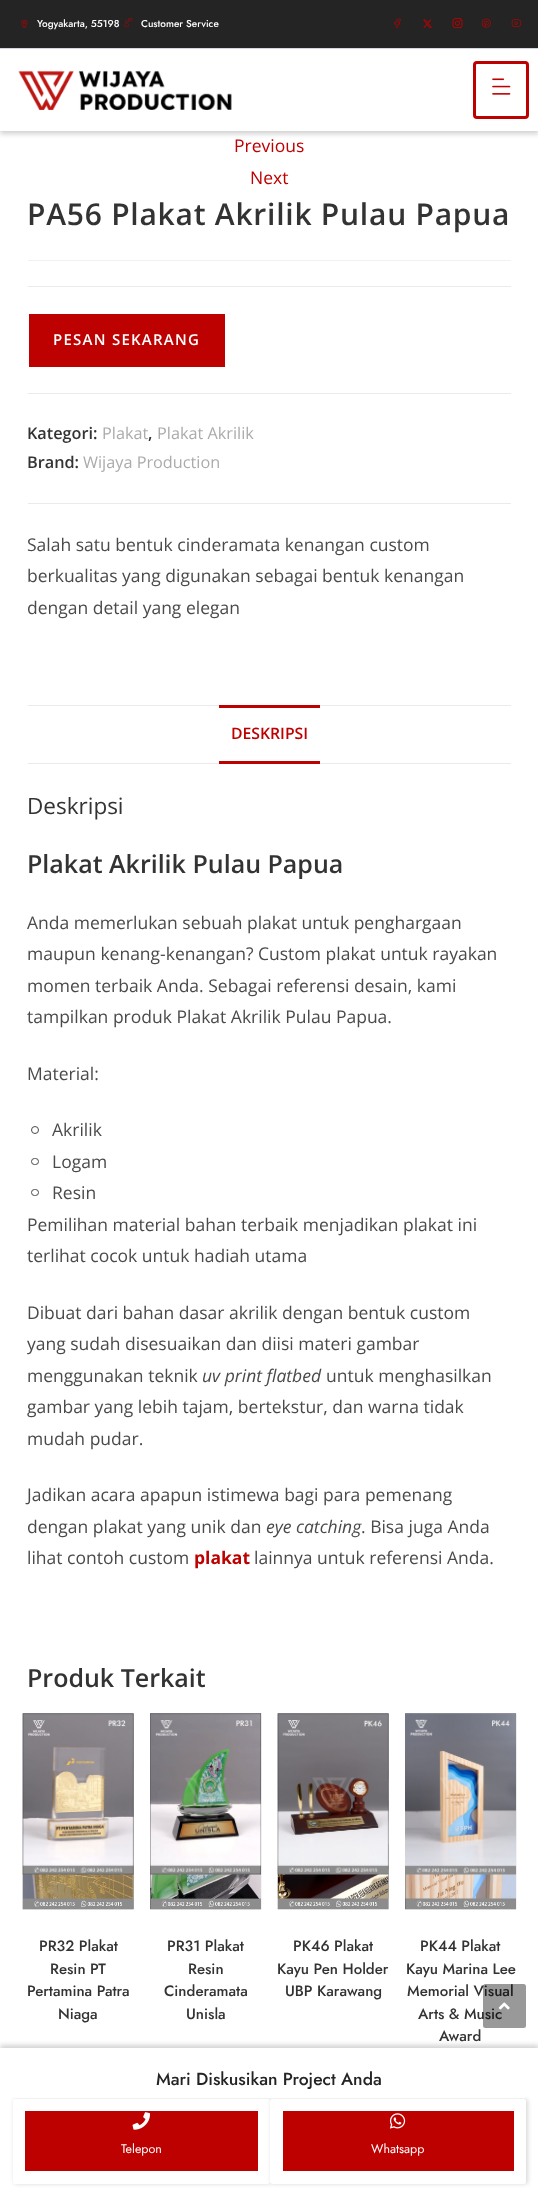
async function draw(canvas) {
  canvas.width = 538;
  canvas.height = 2190;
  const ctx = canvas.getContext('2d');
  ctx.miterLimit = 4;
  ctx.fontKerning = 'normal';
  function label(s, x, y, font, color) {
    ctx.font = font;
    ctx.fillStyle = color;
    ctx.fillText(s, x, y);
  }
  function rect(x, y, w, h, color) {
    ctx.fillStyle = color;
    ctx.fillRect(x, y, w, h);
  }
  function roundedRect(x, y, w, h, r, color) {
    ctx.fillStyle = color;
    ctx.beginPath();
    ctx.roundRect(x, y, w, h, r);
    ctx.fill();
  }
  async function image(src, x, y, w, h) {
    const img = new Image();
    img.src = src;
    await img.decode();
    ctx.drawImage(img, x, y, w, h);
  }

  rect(0, 0, 538, 2190, '#fff');
  ctx.fillStyle = '#0000002e';
  ctx.filter = 'blur(2.5px)';
  ctx.beginPath();
  ctx.rect(0, 3, 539, 131);
  ctx.fill();
  ctx.filter = 'none';
  rect(0, 0, 538, 48, '#242424');
  rect(0, 48, 538, 1, '#d4d6e3');
  await image('assets/img1.png', 21, 19, 7, 9);
  label('Yogyakarta, 55198', 37, 27, '500 10px Jost', '#fff');
  await image('assets/img2.png', 124, 18, 9, 9);
  label('Customer Service', 141, 27, '500 10px Jost', '#fff');
  await image('assets/img3.png', 394, 18, 7, 10);
  await image('assets/img4.png', 423, 19, 9, 9);
  await image('assets/img5.png', 452, 18, 11, 11);
  await image('assets/img6.png', 481, 18, 10, 10);
  await image('assets/img7.png', 511, 19, 10, 8);
  rect(0, 49, 538, 82, '#fff');
  await image('assets/img8.png', 18, 70, 214, 40);
  ctx.beginPath();
  ctx.roundRect(474.5, 62.5, 53, 55, 2.5);
  ctx.strokeStyle = '#bd0000';
  ctx.lineWidth = 3;
  ctx.stroke();
  await image('assets/img9.png', 492, 78, 19, 17);
  label('Previous', 234, 152, '17.5px Open Sans', '#bd0000');
  label('Next', 250, 184, '17.5px Open Sans', '#bd0000');
  rect(28, 260, 483, 1, '#f1f1f1');
  ctx.letterSpacing = '0.75px';
  label('PA56 Plakat Akrilik Pulau Papua', 27, 225, '600 30px Open Sans', '#333');
  rect(28, 286, 483, 1, '#eaeaea');
  rect(28, 393, 483, 1, '#eaeaea');
  rect(29, 314, 196, 53, '#bd0000');
  ctx.letterSpacing = '1.25px';
  label('PESAN SEKARANG', 53, 345, '600 15px Open Sans', '#fff');
  rect(28, 503, 483, 1, '#eaeaea');
  ctx.letterSpacing = '0px';
  label('Kategori:', 27, 439, '600 16.25px Open Sans', '#333');
  label('Plakat', 102, 439, '16.25px Open Sans', '#ababab');
  label(',', 148, 439, '600 16.25px Open Sans', '#333');
  label('Plakat Akrilik', 157, 439, '16.25px Open Sans', '#ababab');
  label('Brand:', 27, 468, '600 16.25px Open Sans', '#333');
  label('Wijaya Production', 83, 468, '16.25px Open Sans', '#ababab');
  label('Salah satu bentuk cinderamata kenangan custom', 27, 551, '17.5px Open Sans', '#4a4a4a');
  label('berkualitas yang digunakan sebagai bentuk kenangan', 27, 582, '17.5px Open Sans', '#4a4a4a');
  label('dengan detail yang elegan', 27, 614, '17.5px Open Sans', '#4a4a4a');
  rect(28, 705, 483, 1, '#eaeaea');
  rect(28, 763, 483, 1, '#eaeaea');
  rect(219, 705, 101, 3, '#bd0000');
  rect(219, 761, 101, 3, '#bd0000');
  label('DESKRIPSI', 231, 739, '600 15.75px Open Sans', '#bd0000');
  label('Deskripsi', 27, 814, '22.5px Open Sans', '#333');
  label('Plakat Akrilik Pulau Papua', 27, 873, '600 25px Open Sans', '#333');
  label('Anda memerlukan sebuah plakat untuk penghargaan', 27, 929, '17.5px Open Sans', '#4a4a4a');
  label('maupun kenang-kenangan? Custom plakat untuk rayakan', 27, 960, '17.5px Open Sans', '#4a4a4a');
  label('momen terbaik Anda. Sebagai referensi desain, kami', 27, 992, '17.5px Open Sans', '#4a4a4a');
  label('tampilkan produk Plakat Akrilik Pulau Papua.', 27, 1023, '17.5px Open Sans', '#4a4a4a');
  label('Material:', 27, 1080, '17.5px Open Sans', '#4a4a4a');
  ctx.beginPath();
  ctx.arc(35, 1130, 3.5, 0, 2 * Math.PI);
  ctx.strokeStyle = '#4a4a4a';
  ctx.lineWidth = 1;
  ctx.stroke();
  label('Akrilik', 52, 1136, '17.5px Open Sans', '#4a4a4a');
  ctx.beginPath();
  ctx.roundRect(31.5, 1158.5, 7, 6, 3);
  ctx.stroke();
  label('Logam', 52, 1168, '17.5px Open Sans', '#4a4a4a');
  ctx.beginPath();
  ctx.roundRect(31.5, 1189.5, 7, 6, 3);
  ctx.stroke();
  label('Resin', 52, 1199, '17.5px Open Sans', '#4a4a4a');
  label('Pemilihan material bahan terbaik menjadikan plakat ini', 27, 1231, '17.5px Open Sans', '#4a4a4a');
  label('terlihat cocok untuk hadiah utama', 27, 1262, '17.5px Open Sans', '#4a4a4a');
  label('Dibuat dari bahan dasar akrilik dengan bentuk custom', 27, 1319, '17.5px Open Sans', '#4a4a4a');
  label('yang sudah disesuaikan dan diisi materi gambar', 27, 1350, '17.5px Open Sans', '#4a4a4a');
  label('menggunakan teknik', 27, 1382, '17.5px Open Sans', '#4a4a4a');
  label('uv print flatbed', 202, 1382, 'italic 17.5px Open Sans', '#4a4a4a');
  label('untuk menghasilkan', 326, 1382, '17.5px Open Sans', '#4a4a4a');
  label('gambar yang lebih tajam, bertekstur, dan warna tidak', 27, 1413, '17.5px Open Sans', '#4a4a4a');
  label('mudah pudar.', 27, 1445, '17.5px Open Sans', '#4a4a4a');
  label('Jadikan acara apapun istimewa bagi para pemenang', 27, 1501, '17.5px Open Sans', '#4a4a4a');
  label('dengan plakat yang unik dan', 27, 1533, '17.5px Open Sans', '#4a4a4a');
  label('eye catching', 266, 1533, 'italic 17.5px Open Sans', '#4a4a4a');
  label('. Bisa juga Anda', 361, 1533, '17.5px Open Sans', '#4a4a4a');
  label('lihat contoh custom', 27, 1564, '17.5px Open Sans', '#4a4a4a');
  label('plakat', 194, 1564, 'bold 17.5px Open Sans', '#bd0000');
  label('lainnya untuk referensi Anda.', 254, 1564, '17.5px Open Sans', '#4a4a4a');
  label('Produk Terkait', 27, 1687, '600 25px Open Sans', '#333');
  await image('assets/img10.png', 22, 1713, 112, 197);
  await image('assets/img11.png', 22, 1713, 112, 162);
  label('PR32 Plakat', 39, 1951, '500 15px Jost', '#333');
  label('Resin PT', 50, 1974, '500 15px Jost', '#333');
  label('Pertamina Patra', 27, 1996, '500 15px Jost', '#333');
  label('Niaga', 58, 2019, '500 15px Jost', '#333');
  await image('assets/img12.png', 150, 1713, 112, 197);
  await image('assets/img13.png', 150, 1713, 112, 162);
  label('PR31 Plakat', 167, 1951, '500 15px Jost', '#333');
  label('Resin', 188, 1974, '500 15px Jost', '#333');
  label('Cinderamata', 164, 1996, '500 15px Jost', '#333');
  label('Unisla', 186, 2019, '500 15px Jost', '#333');
  await image('assets/img14.png', 277, 1713, 112, 197);
  await image('assets/img15.png', 277, 1713, 112, 162);
  label('PK46 Plakat', 293, 1951, '500 15px Jost', '#333');
  label('Kayu Pen Holder', 277, 1974, '500 15px Jost', '#333');
  label('UBP Karawang', 285, 1996, '500 15px Jost', '#333');
  await image('assets/img16.png', 405, 1713, 112, 197);
  await image('assets/img17.png', 405, 1713, 112, 162);
  label('PK44 Plakat', 420, 1951, '500 15px Jost', '#333');
  label('Kayu Marina Lee', 406, 1974, '500 15px Jost', '#333');
  label('Memorial Visual', 407, 1996, '500 15px Jost', '#333');
  label('Arts & Music', 418, 2019, '500 15px Jost', '#333');
  label('Award', 439, 2041, '500 15px Jost', '#333');
  ctx.fillStyle = '#0c0c0c2e';
  ctx.filter = 'blur(2.5px)';
  ctx.beginPath();
  ctx.rect(0, 2045, 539, 143);
  ctx.fill();
  ctx.filter = 'none';
  rect(0, 2048, 538, 142, '#fff');
  ctx.fillStyle = '#00000026';
  ctx.filter = 'blur(2px)';
  ctx.beginPath();
  ctx.roundRect(14, 2099, 257, 85, 2.5);
  ctx.fill();
  ctx.filter = 'none';
  roundedRect(13, 2099, 257, 85, 2.5, '#fff');
  ctx.fillStyle = '#00000026';
  ctx.filter = 'blur(2px)';
  ctx.beginPath();
  ctx.roundRect(271, 2099, 257, 85, 2.5);
  ctx.fill();
  ctx.filter = 'none';
  roundedRect(13, 2060, 513, 38, 2.5, '#fff');
  label('Mari Diskusikan Project Anda', 156, 2085, '500 17.5px Jost', '#242424');
  rect(25, 2111, 233, 60, '#bd0000');
  await image('assets/img18.png', 132, 2112, 18, 18);
  label('Telepon', 121, 2153, '12.5px Jost', '#fff');
  roundedRect(270, 2099, 256, 85, 2.5, '#fff');
  rect(283, 2111, 231, 60, '#bd0000');
  await image('assets/img19.png', 389, 2113, 17, 16);
  label('Whatsapp', 371, 2153, '12.5px Jost', '#fff');
  roundedRect(483, 1984, 43, 44, 2.5, '#00000066');
  await image('assets/img20.png', 498, 2002, 12, 8);
}

draw(document.querySelector('canvas'));
